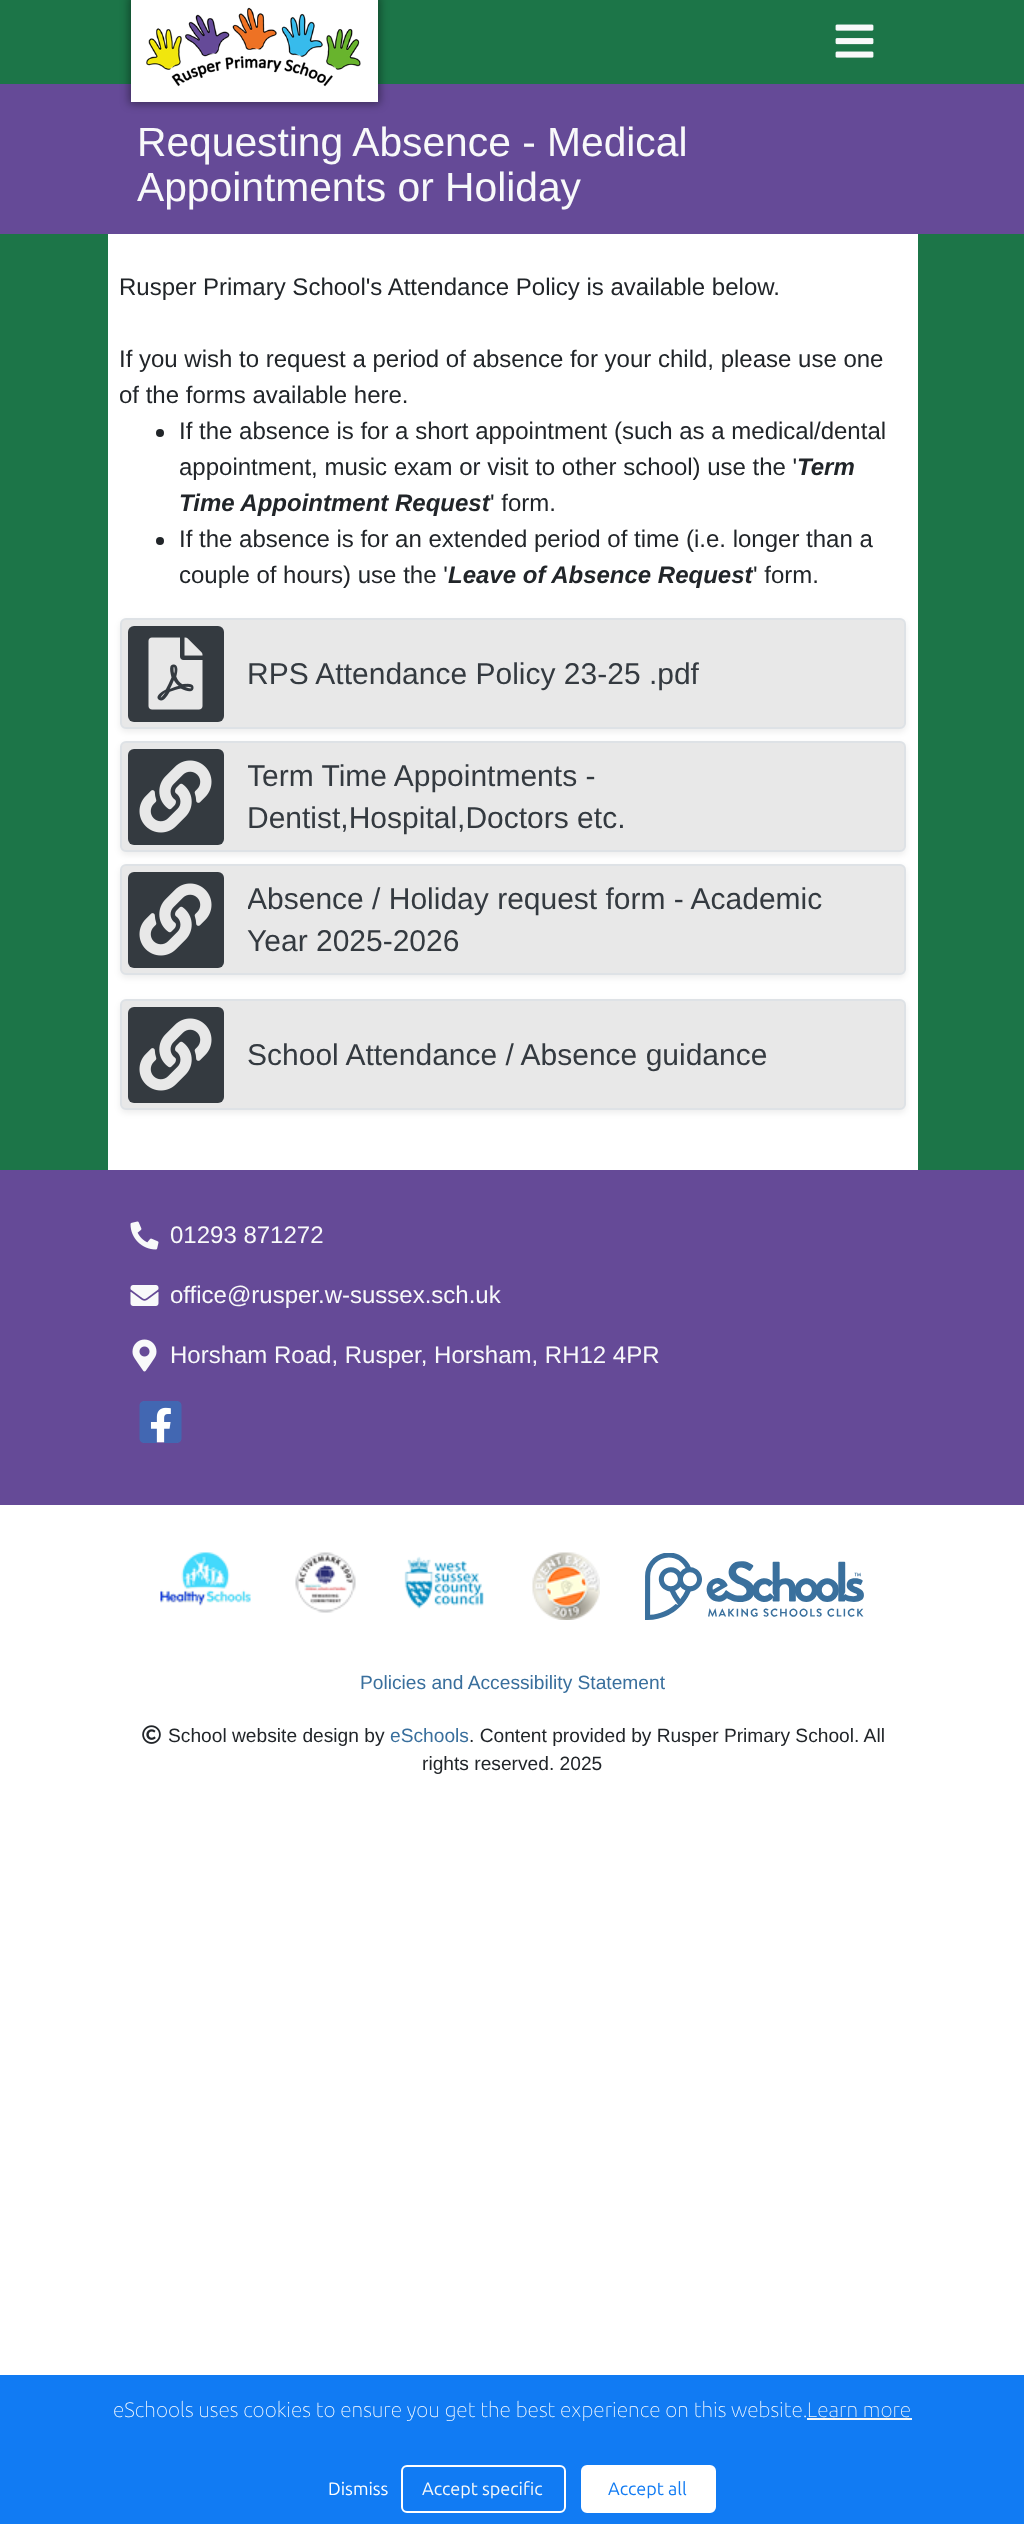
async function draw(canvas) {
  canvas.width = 1024;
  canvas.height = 2524;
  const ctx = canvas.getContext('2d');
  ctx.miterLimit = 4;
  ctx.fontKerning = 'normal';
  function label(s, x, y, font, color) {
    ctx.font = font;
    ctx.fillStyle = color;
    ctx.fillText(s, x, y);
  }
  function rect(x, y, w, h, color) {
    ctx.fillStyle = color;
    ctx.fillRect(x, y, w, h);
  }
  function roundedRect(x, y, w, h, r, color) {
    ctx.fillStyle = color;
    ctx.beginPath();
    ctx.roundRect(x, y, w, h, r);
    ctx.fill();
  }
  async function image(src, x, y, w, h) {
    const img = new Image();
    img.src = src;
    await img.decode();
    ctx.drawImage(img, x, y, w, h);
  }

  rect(0, 0, 1024, 2524, '#fff');
  rect(0, 0, 1024, 84, '#1c7548');
  rect(0, 84, 1024, 150, '#654a97');
  ctx.fillStyle = '#00000066';
  ctx.filter = 'blur(4px)';
  ctx.beginPath();
  ctx.rect(129, -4, 251, 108);
  ctx.fill();
  ctx.filter = 'none';
  rect(131, 0, 247, 102, '#fff');
  await image('assets/img1.png', 146, 7, 215, 80);
  await image('assets/img2.png', 835, 24, 39, 34);
  label('Requesting Absence - Medical', 137, 156, '40.75px Liberation Sans', '#f8f9fa');
  label('Appointments or Holiday', 137, 201, '40.75px Liberation Sans', '#f8f9fa');
  rect(0, 234, 1024, 936, '#1c7548');
  rect(108, 234, 810, 936, '#fff');
  label('Rusper Primary School\'s Attendance Policy is available below.', 119, 295, '24px Liberation Sans', '#212529');
  label('If you wish to request a period of absence for your child, please use one', 119, 367, '24px Liberation Sans', '#212529');
  label('of the forms available here.', 119, 403, '24px Liberation Sans', '#212529');
  ctx.beginPath();
  ctx.arc(160, 433, 4, 0, 2 * Math.PI);
  ctx.fill();
  label('If the absence is for a short appointment (such as a medical/dental', 179, 439, '24px Liberation Sans', '#212529');
  label('appointment, music exam or visit to other school) use the \'', 179, 475, '24px Liberation Sans', '#212529');
  label('Term', 797, 475, 'italic bold 24px Liberation Sans', '#212529');
  label('Time Appointment Request', 179, 511, 'italic bold 24px Liberation Sans', '#212529');
  label('\' form.', 490, 511, '24px Liberation Sans', '#212529');
  ctx.beginPath();
  ctx.arc(160, 541, 4, 0, 2 * Math.PI);
  ctx.fill();
  label('If the absence is for an extended period of time (i.e. longer than a', 179, 547, '24px Liberation Sans', '#212529');
  label('couple of hours) use the \'', 179, 583, '24px Liberation Sans', '#212529');
  label('Leave of Absence Request', 448, 583, 'italic bold 24px Liberation Sans', '#212529');
  label('\' form.', 753, 583, '24px Liberation Sans', '#212529');
  ctx.fillStyle = '#00000012';
  ctx.filter = 'blur(3px)';
  ctx.beginPath();
  ctx.roundRect(120, 621, 786, 111, 6);
  ctx.fill();
  ctx.filter = 'none';
  ctx.fillStyle = '#e8e8e8';
  ctx.beginPath();
  ctx.roundRect(121, 619, 784, 109, 5);
  ctx.fill();
  ctx.strokeStyle = '#dee2e6';
  ctx.lineWidth = 2;
  ctx.stroke();
  roundedRect(128, 626, 96, 96, 6, '#343a40');
  await image('assets/img3.png', 148, 637, 55, 73);
  label('RPS Attendance Policy 23-25 .pdf', 247, 684, '30px Liberation Sans', '#343a40');
  ctx.fillStyle = '#00000012';
  ctx.filter = 'blur(3px)';
  ctx.beginPath();
  ctx.roundRect(120, 744, 786, 111, 6);
  ctx.fill();
  ctx.filter = 'none';
  ctx.fillStyle = '#e8e8e8';
  ctx.beginPath();
  ctx.roundRect(121, 742, 784, 109, 5);
  ctx.fill();
  ctx.stroke();
  roundedRect(128, 749, 96, 96, 6, '#343a40');
  await image('assets/img4.png', 139, 760, 73, 73);
  ctx.save();
  ctx.beginPath();
  ctx.rect(248, 755, 633, 84);
  ctx.clip();
  label('Term Time Appointments -', 247, 786, '30px Liberation Sans', '#343a40');
  ctx.restore();
  label('Dentist,Hospital,Doctors etc.', 247, 828, '30px Liberation Sans', '#343a40');
  ctx.fillStyle = '#00000012';
  ctx.filter = 'blur(3px)';
  ctx.beginPath();
  ctx.roundRect(120, 867, 786, 111, 6);
  ctx.fill();
  ctx.filter = 'none';
  ctx.fillStyle = '#e8e8e8';
  ctx.beginPath();
  ctx.roundRect(121, 865, 784, 109, 5);
  ctx.fill();
  ctx.stroke();
  roundedRect(128, 872, 96, 96, 6, '#343a40');
  await image('assets/img4.png', 139, 883, 73, 73);
  ctx.save();
  ctx.beginPath();
  ctx.rect(248, 878, 633, 84);
  ctx.clip();
  label('Absence / Holiday request form - Academic', 247, 909, '30px Liberation Sans', '#343a40');
  ctx.restore();
  label('Year 2025-2026', 247, 951, '30px Liberation Sans', '#343a40');
  ctx.fillStyle = '#00000012';
  ctx.filter = 'blur(3px)';
  ctx.beginPath();
  ctx.roundRect(120, 1002, 786, 111, 6);
  ctx.fill();
  ctx.filter = 'none';
  ctx.fillStyle = '#e8e8e8';
  ctx.beginPath();
  ctx.roundRect(121, 1000, 784, 109, 5);
  ctx.fill();
  ctx.stroke();
  roundedRect(128, 1007, 96, 96, 6, '#343a40');
  await image('assets/img4.png', 139, 1018, 73, 73);
  label('School Attendance / Absence guidance', 247, 1065, '30px Liberation Sans', '#343a40');
  rect(0, 1170, 1024, 335, '#654a97');
  await image('assets/img5.png', 130, 1221, 29, 29);
  label('01293 871272', 170, 1243, '24px Liberation Sans', '#f8f9fa');
  await image('assets/img6.png', 130, 1285, 29, 21);
  label('office@rusper.w-sussex.sch.uk', 170, 1303, '24px Liberation Sans', '#f8f9fa');
  await image('assets/img7.png', 132, 1339, 25, 33);
  label('Horsham Road, Rusper, Horsham, RH12 4PR', 170, 1363, '24px Liberation Sans', '#f8f9fa');
  await image('assets/img9.png', 140, 1401, 41, 42);
  await image('assets/img8.png', 139, 1401, 43, 42);
  await image('assets/img10.png', 160, 1552, 91, 54);
  await image('assets/img11.png', 295, 1552, 61, 61);
  await image('assets/img12.png', 404, 1556, 80, 53);
  await image('assets/img13.png', 532, 1552, 68, 68);
  await image('assets/img14.png', 645, 1553, 219, 67);
  label('Policies and Accessibility Statement', 360, 1689, '19.2px Liberation Sans', '#396f9d');
  await image('assets/img15.png', 142, 1725, 19, 19);
  label('School website design by', 168, 1742, '19.2px Liberation Sans', '#212529');
  label('eSchools', 390, 1742, '19.2px Liberation Sans', '#396f9d');
  label('. Content provided by Rusper Primary School. All', 469, 1742, '19.2px Liberation Sans', '#212529');
  label('rights reserved. 2025', 422, 1770, '19.2px Liberation Sans', '#212529');
  rect(0, 2375, 1024, 149, '#117bf3');
  label('eSchools uses cookies to ensure you get the best experience on this website.', 113, 2417, '100 21px Ubuntu', '#fff');
  rect(807, 2418, 105, 2, '#f7f7f7');
  label('Learn more', 807, 2417, '100 21px Ubuntu', '#f8f9fa');
  label('Dismiss', 328, 2495, '18px Ubuntu', '#fff');
  ctx.beginPath();
  ctx.roundRect(402, 2466, 163, 46, 5);
  ctx.strokeStyle = '#fff';
  ctx.stroke();
  label('Accept specific', 422, 2495, '18px Ubuntu', '#f8f9fa');
  ctx.fillStyle = '#fff';
  ctx.beginPath();
  ctx.roundRect(582, 2466, 133, 46, 5);
  ctx.fill();
  ctx.stroke();
  label('Accept all', 608, 2495, '18px Ubuntu', '#117bf3');
}

draw(document.querySelector('canvas'));
